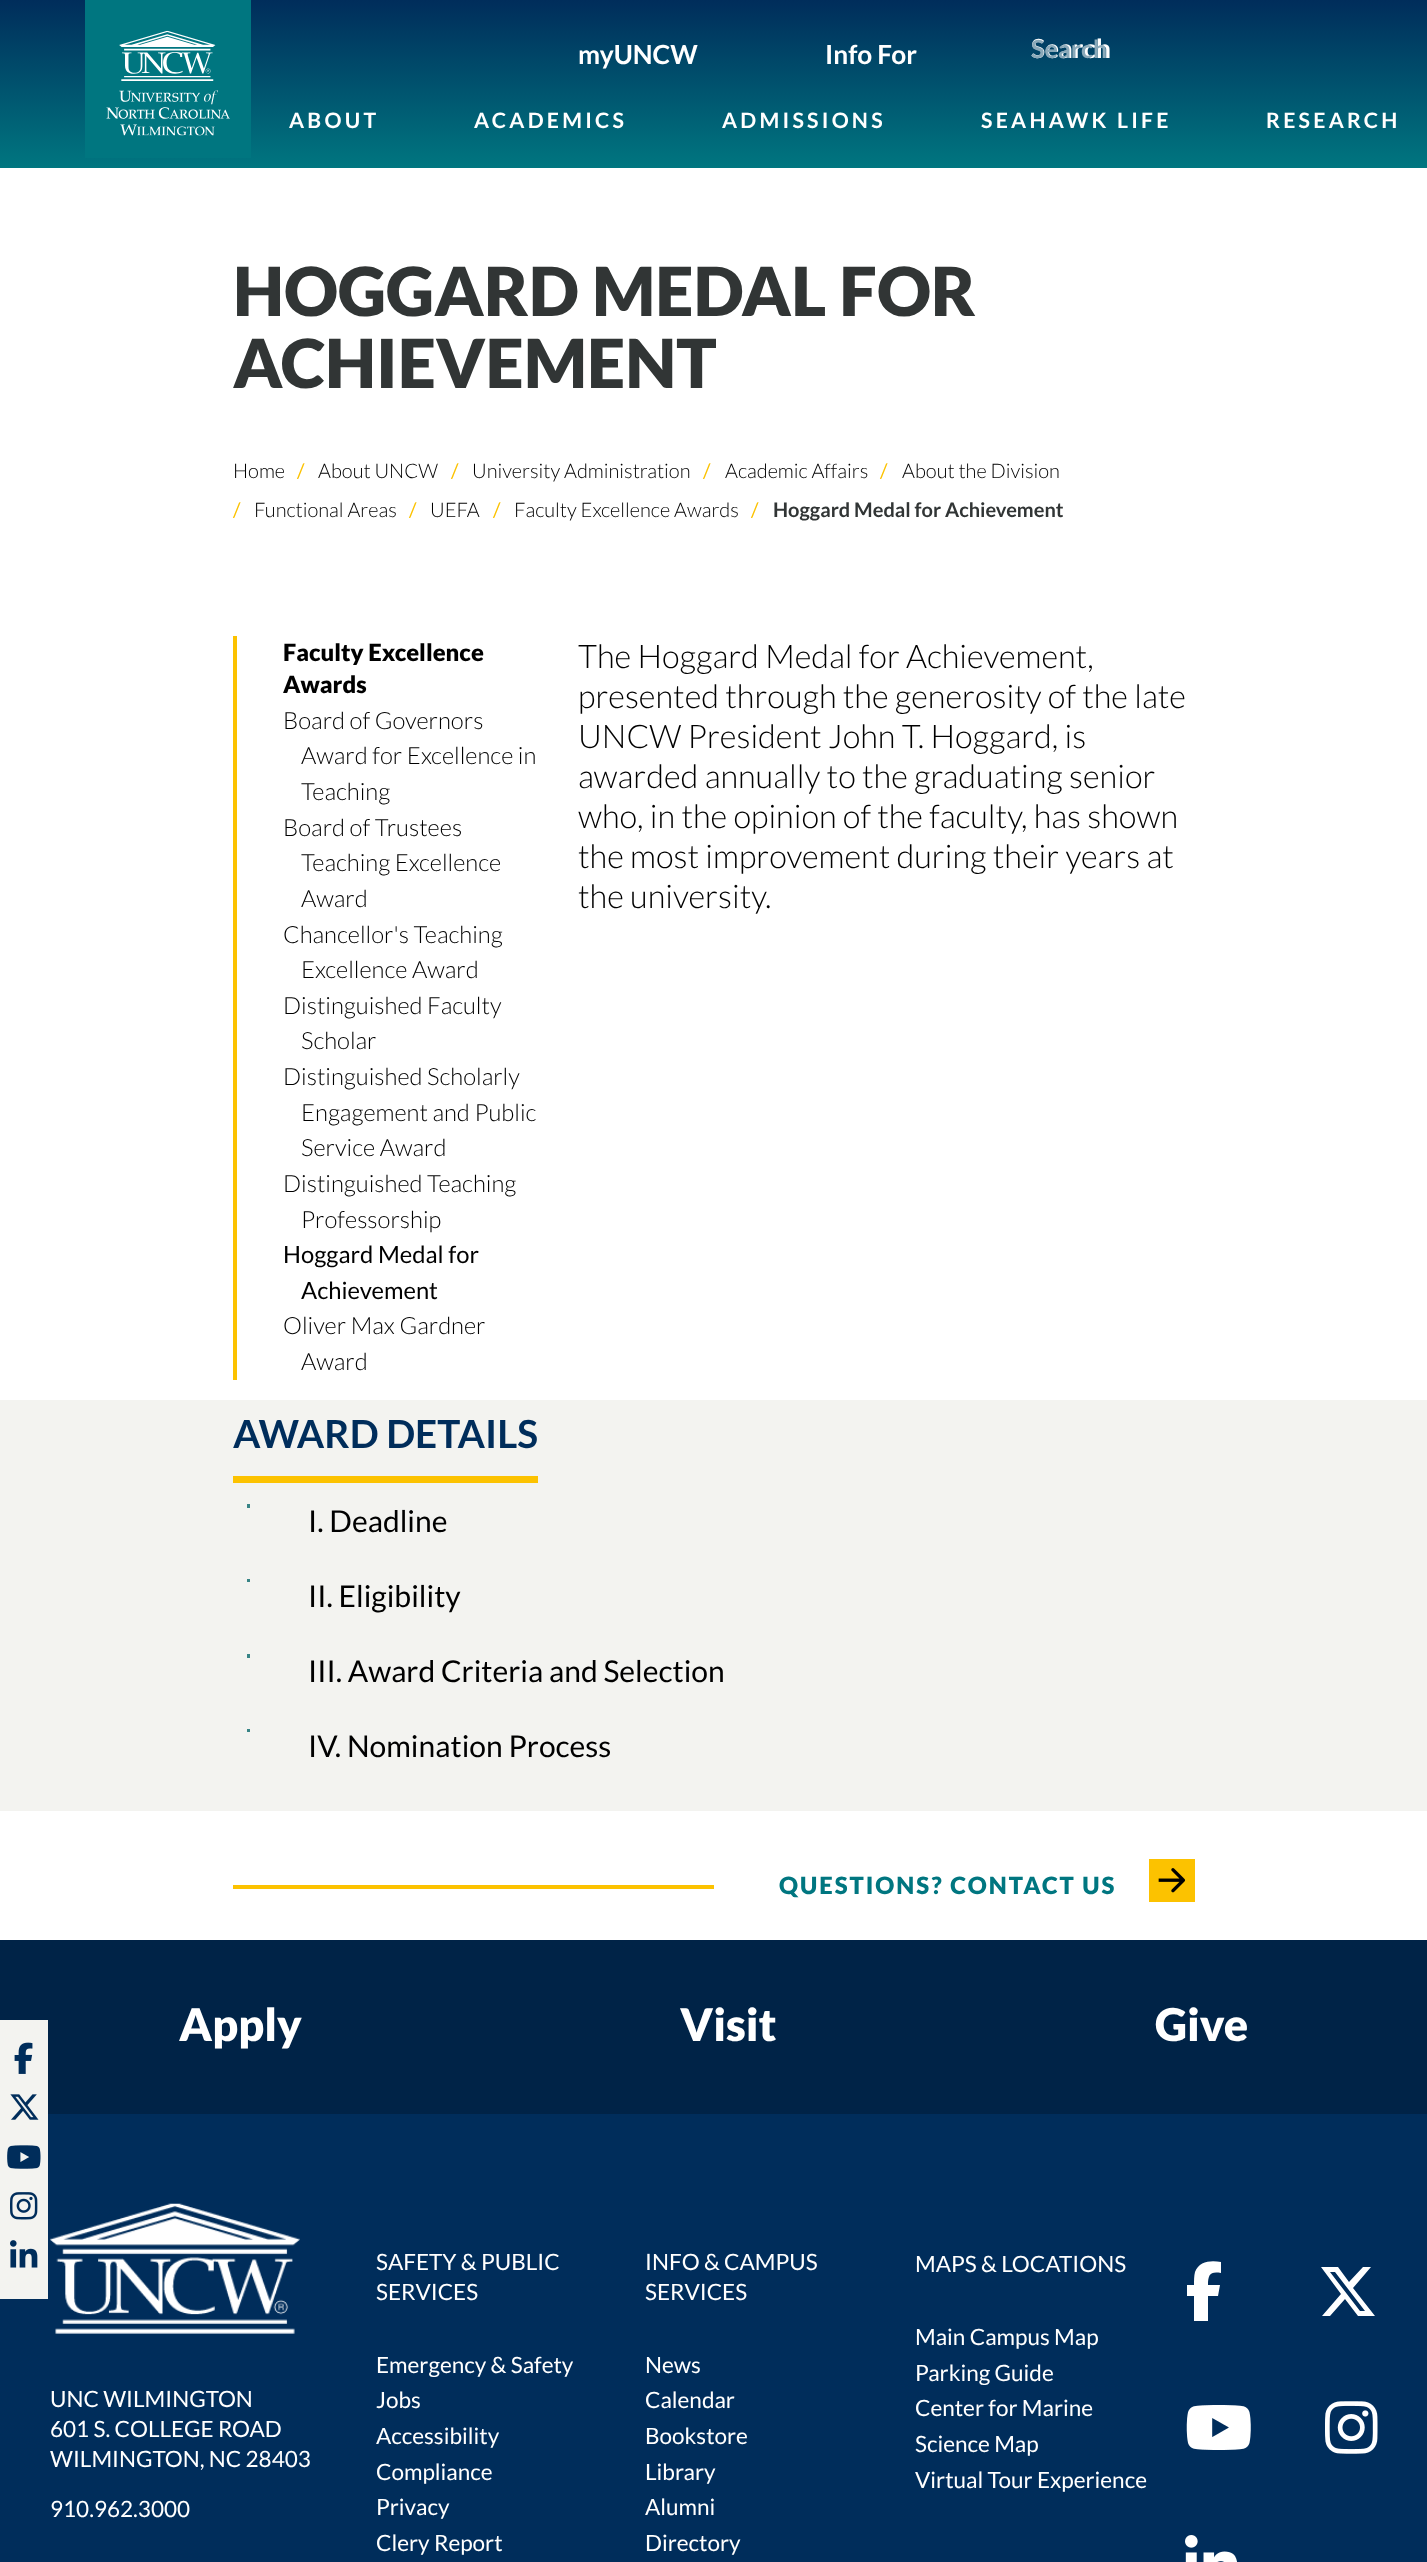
async function draw(canvas) {
  canvas.width = 1427;
  canvas.height = 2562;
  const ctx = canvas.getContext('2d');
  ctx.miterLimit = 4;
  ctx.fontKerning = 'normal';
  function label(s, x, y, font, color) {
    ctx.font = font;
    ctx.fillStyle = color;
    ctx.fillText(s, x, y);
  }
  function rect(x, y, w, h, color) {
    ctx.fillStyle = color;
    ctx.fillRect(x, y, w, h);
  }
  async function image(src, x, y, w, h) {
    const img = new Image();
    img.src = src;
    await img.decode();
    ctx.drawImage(img, x, y, w, h);
  }
  let gradient, path;

  rect(0, 0, 1427, 2562, '#fff');
  gradient = ctx.createLinearGradient(714, 168, 714, 0);
  gradient.addColorStop(0, '#007680');
  gradient.addColorStop(1, '#002d5b');
  ctx.fillStyle = gradient;
  ctx.fillRect(0, 0, 1427, 168);
  await image('assets/img1.png', 85, 0, 166, 158);
  label('myUNCW', 578, 64, 'bold 26.25px Lato', '#fff');
  label('Info For', 825, 64, 'bold 26.25px Lato', '#fff');
  label('Search', 1031, 58, 'bold 26.25px Lato', '#fff');
  label('Search', 1031, 58, 'bold 25px Lato', '#8aa9b9');
  ctx.letterSpacing = '3.25px';
  label('ABOUT', 289, 128, 'bold 21.25px Lato', '#fff');
  label('ACADEMICS', 474, 128, 'bold 21.25px Lato', '#fff');
  label('ADMISSIONS', 722, 128, 'bold 21.25px Lato', '#fff');
  label('SEAHAWK LIFE', 981, 128, 'bold 21.25px Lato', '#fff');
  label('RESEARCH', 1266, 128, 'bold 21.25px Lato', '#fff');
  ctx.letterSpacing = '0px';
  label('HOGGARD MEDAL FOR', 233, 316, '900 67.5px Lato', '#313535');
  label('ACHIEVEMENT', 233, 388, '900 67.5px Lato', '#313535');
  label('Home', 233, 478, '300 20px Lato', '#000');
  label('/', 297, 478, '20px Lato', '#fcc200');
  label('About UNCW', 318, 478, '300 20px Lato', '#000');
  label('/', 451, 478, '20px Lato', '#fcc200');
  label('University Administration', 472, 478, '300 20px Lato', '#000');
  label('/', 703, 478, '20px Lato', '#fcc200');
  label('Academic Affairs', 725, 478, '300 20px Lato', '#000');
  label('/', 880, 478, '20px Lato', '#fcc200');
  label('About the Division', 902, 478, '300 20px Lato', '#000');
  label('/', 233, 517, '20px Lato', '#fcc200');
  label('Functional Areas', 254, 517, '300 20px Lato', '#000');
  label('/', 409, 517, '20px Lato', '#fcc200');
  label('UEFA', 430, 517, '300 20px Lato', '#000');
  label('/', 493, 517, '20px Lato', '#fcc200');
  label('Faculty Excellence Awards', 514, 517, '300 20px Lato', '#000');
  label('/', 751, 517, '20px Lato', '#fcc200');
  label('Hoggard Medal for Achievement', 773, 517, 'bold 20px Lato', '#313535');
  rect(233, 636, 4, 744, '#fcc200');
  label('Faculty Excellence', 283, 661, '900 23.75px Lato', '#000');
  label('Awards', 283, 693, '900 23.75px Lato', '#000');
  label('Board of Governors', 283, 729, '300 23.75px Lato', '#000');
  label('Award for Excellence in', 301, 764, '300 23.75px Lato', '#000');
  label('Teaching', 301, 800, '300 23.75px Lato', '#000');
  label('Board of Trustees', 283, 836, '300 23.75px Lato', '#000');
  label('Teaching Excellence', 301, 871, '300 23.75px Lato', '#000');
  label('Award', 301, 907, '300 23.75px Lato', '#000');
  label('Chancellor\'s Teaching', 283, 943, '300 23.75px Lato', '#000');
  label('Excellence Award', 301, 978, '300 23.75px Lato', '#000');
  label('Distinguished Faculty', 283, 1014, '300 23.75px Lato', '#000');
  label('Scholar', 301, 1049, '300 23.75px Lato', '#000');
  label('Distinguished Scholarly', 283, 1085, '300 23.75px Lato', '#000');
  label('Engagement and Public', 301, 1121, '300 23.75px Lato', '#000');
  label('Service Award', 301, 1156, '300 23.75px Lato', '#000');
  label('Distinguished Teaching', 283, 1192, '300 23.75px Lato', '#000');
  label('Professorship', 301, 1228, '300 23.75px Lato', '#000');
  label('Hoggard Medal for', 283, 1263, '23.75px Lato', '#000');
  label('Achievement', 301, 1299, '23.75px Lato', '#000');
  label('Oliver Max Gardner', 283, 1334, '300 23.75px Lato', '#000');
  label('Award', 301, 1370, '300 23.75px Lato', '#000');
  label('The Hoggard Medal for Achievement,', 578, 668, '300 32.5px Lato', '#000');
  label('presented through the generosity of the late', 578, 708, '300 32.5px Lato', '#000');
  label('UNCW President John T. Hoggard, is', 578, 748, '300 32.5px Lato', '#000');
  label('awarded annually to the graduating senior', 578, 788, '300 32.5px Lato', '#000');
  label('who, in the opinion of the faculty, has shown', 578, 828, '300 32.5px Lato', '#000');
  label('the most improvement during their years at', 578, 868, '300 32.5px Lato', '#000');
  label('the university.', 578, 908, '300 32.5px Lato', '#000');
  rect(0, 1400, 1427, 411, '#f3f3f0');
  label('AWARD DETAILS', 233, 1448, 'bold 38.75px Lato', '#002d5b');
  rect(233, 1476, 305, 7, '#fcc200');
  rect(247, 1504, 3, 4, '#388486');
  label('I. Deadline', 308, 1532, '30px Lato', '#000');
  rect(247, 1579, 3, 3, '#388486');
  label('II. Eligibility', 308, 1607, '30px Lato', '#000');
  rect(247, 1654, 3, 4, '#388486');
  label('III. Award Criteria and Selection', 308, 1682, '30px Lato', '#000');
  rect(247, 1729, 3, 3, '#388486');
  label('IV. Nomination Process', 308, 1757, '30px Lato', '#000');
  rect(233, 1885, 481, 4, '#fcc200');
  ctx.letterSpacing = '2px';
  label('QUESTIONS? CONTACT US', 779, 1894, '900 23.75px Lato', '#007680');
  await image('assets/img2.png', 1149, 1859, 46, 43);
  rect(0, 1940, 1427, 174, '#002347');
  rect(0, 2114, 1427, 448, '#002d5b');
  rect(0, 2020, 48, 279, '#f3f3f0');
  await image('assets/img3.png', 14, 2042, 19, 32);
  await image('assets/img4.png', 10, 2094, 29, 26);
  await image('assets/img5.png', 7, 2145, 34, 24);
  await image('assets/img6.png', 10, 2192, 28, 28);
  await image('assets/img7.png', 10, 2240, 28, 28);
  ctx.letterSpacing = '0px';
  label('Apply', 179, 2041, '900 45px Lato', '#fff');
  label('Visit', 680, 2041, '900 45px Lato', '#fff');
  label('Give', 1155, 2041, '900 45px Lato', '#fff');
  await image('assets/img8.png', 50, 2203, 250, 131);
  label('UNC WILMINGTON', 50, 2407, '22.5px Lato', '#fff');
  label('601 S. COLLEGE ROAD', 50, 2437, '22.5px Lato', '#fff');
  label('WILMINGTON, NC 28403', 50, 2467, '22.5px Lato', '#fff');
  label('910.962.3000', 50, 2517, '22.5px Lato', '#fff');
  label('SAFETY & PUBLIC', 376, 2270, '22.5px Lato', '#fff');
  label('SERVICES', 376, 2300, '22.5px Lato', '#fff');
  label('Emergency & Safety', 376, 2373, '22.5px Lato', '#fff');
  label('Jobs', 376, 2408, '22.5px Lato', '#fff');
  label('Accessibility', 376, 2444, '22.5px Lato', '#fff');
  label('Compliance', 376, 2480, '22.5px Lato', '#fff');
  label('Privacy', 376, 2515, '22.5px Lato', '#fff');
  label('Clery Report', 376, 2551, '22.5px Lato', '#fff');
  label('INFO & CAMPUS', 645, 2270, '22.5px Lato', '#fff');
  label('SERVICES', 645, 2300, '22.5px Lato', '#fff');
  label('News', 645, 2373, '22.5px Lato', '#fff');
  label('Calendar', 645, 2408, '22.5px Lato', '#fff');
  label('Bookstore', 645, 2444, '22.5px Lato', '#fff');
  label('Library', 645, 2480, '22.5px Lato', '#fff');
  label('Alumni', 645, 2515, '22.5px Lato', '#fff');
  label('Directory', 645, 2551, '22.5px Lato', '#fff');
  label('MAPS & LOCATIONS', 915, 2272, '22.5px Lato', '#fff');
  label('Main Campus Map', 915, 2345, '22.5px Lato', '#fff');
  label('Parking Guide', 915, 2381, '22.5px Lato', '#fff');
  label('Center for Marine', 915, 2416, '22.5px Lato', '#fff');
  label('Science Map', 915, 2452, '22.5px Lato', '#fff');
  label('Virtual Tour Experience', 915, 2488, '22.5px Lato', '#fff');
  path = new Path2D('M1194 2296V2321V2296V2321H1208V2296H1218L1220 2285H1208C1208 2275 1210 2271 1221 2273V2262C1211 2260 1199 2261 1195 2272C1194 2276 1194 2280 1194 2285H1187V2296Z');
  ctx.fill(path);
  path = new Path2D('M1363 2267H1371H1363H1371L1353 2288L1375 2316H1358L1345 2299L1330 2316H1322L1341 2294L1321 2267H1338L1349 2282ZM1360 2311H1365H1360H1365L1335 2272H1330Z');
  ctx.fill(path);
  await image('assets/img9.png', 1186, 2405, 65, 45);
  await image('assets/img10.png', 1325, 2401, 53, 53);
  await image('assets/img11.png', 1185, 2535, 52, 27);
}

draw(document.querySelector('canvas'));
